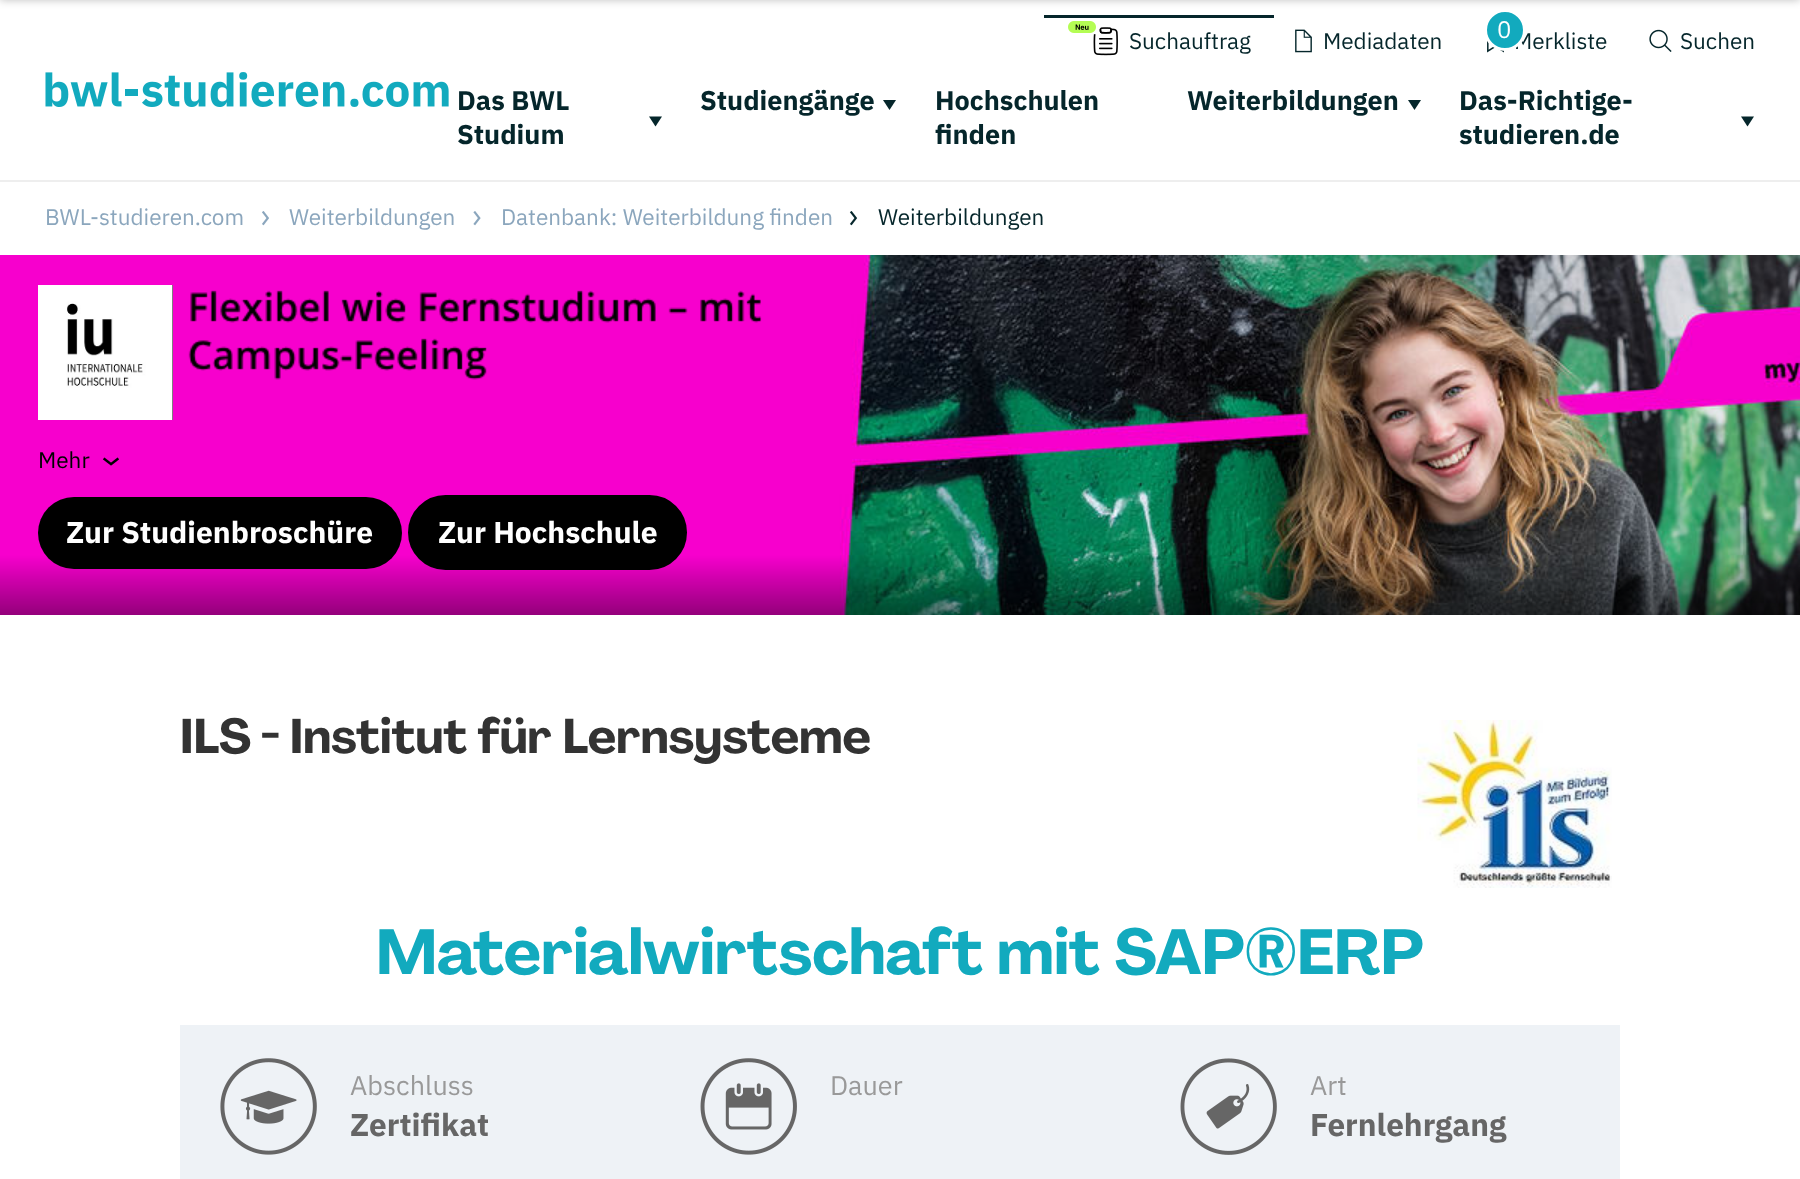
async function draw(canvas) {
  canvas.width = 1800;
  canvas.height = 1179;
  const ctx = canvas.getContext('2d');
  ctx.miterLimit = 4;
  ctx.fontKerning = 'normal';
  function label(s, x, y, font, color) {
    ctx.font = font;
    ctx.fillStyle = color;
    ctx.fillText(s, x, y);
  }
  function rect(x, y, w, h, color) {
    ctx.fillStyle = color;
    ctx.fillRect(x, y, w, h);
  }
  function roundedRect(x, y, w, h, r, color) {
    ctx.fillStyle = color;
    ctx.beginPath();
    ctx.roundRect(x, y, w, h, r);
    ctx.fill();
  }
  async function image(src, x, y, w, h) {
    const img = new Image();
    img.src = src;
    await img.decode();
    ctx.drawImage(img, x, y, w, h);
  }
  let path;

  rect(0, 0, 1800, 1179, '#fff');
  await image('assets/img4.png', 1487, 40, 17, 13);
  label('Merkliste', 1514, 49, '22.5px IBM Plex Sans', '#05262b');
  ctx.fillStyle = '#12aabe';
  ctx.beginPath();
  ctx.arc(1505, 30, 19.5, 0, 2 * Math.PI);
  ctx.fill();
  ctx.strokeStyle = '#fff';
  ctx.lineWidth = 3;
  ctx.stroke();
  ctx.fillStyle = '#00000040';
  ctx.filter = 'blur(4px)';
  ctx.beginPath();
  ctx.rect(0, -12, 1800, 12);
  ctx.fill();
  ctx.filter = 'none';
  rect(1044, 15, 230, 3, '#05262b');
  await image('assets/img1.png', 45, 72, 404, 35);
  await image('assets/img2.png', 1068, 21, 50, 35);
  label('Suchauftrag', 1129, 49, '22.5px IBM Plex Sans', '#05262b');
  await image('assets/img3.png', 1295, 29, 17, 24);
  label('Mediadaten', 1323, 49, '22.5px IBM Plex Sans', '#05262b');
  ctx.letterSpacing = '-3px';
  label('0', 1497, 38, '24px IBM Plex Sans', '#fff');
  await image('assets/img5.png', 1649, 29, 23, 23);
  ctx.letterSpacing = '0px';
  label('Suchen', 1680, 49, '22.5px IBM Plex Sans', '#05262b');
  label('Das BWL', 457, 110, 'bold 27px IBM Plex Sans', '#05262b');
  path = new Path2D('M662 116.5L655.5 126.5L649 116.5Z');
  ctx.fill(path);
  label('Studium', 457, 144, 'bold 27px IBM Plex Sans', '#05262b');
  label('Studiengänge', 700, 110, 'bold 27px IBM Plex Sans', '#05262b');
  path = new Path2D('M896 100L889.5 110L883 100Z');
  ctx.fill(path);
  label('Hochschulen', 935, 110, 'bold 27px IBM Plex Sans', '#05262b');
  label('finden', 935, 144, 'bold 27px IBM Plex Sans', '#05262b');
  label('Weiterbildungen', 1187, 110, 'bold 27px IBM Plex Sans', '#05262b');
  path = new Path2D('M1421 100L1414.5 110L1408 100Z');
  ctx.fill(path);
  label('Das-Richtige-', 1459, 110, 'bold 27px IBM Plex Sans', '#05262b');
  path = new Path2D('M1754 116.5L1747.5 126.5L1741 116.5Z');
  ctx.fill(path);
  label('studieren.de', 1459, 144, 'bold 27px IBM Plex Sans', '#05262b');
  rect(0, 180, 1800, 2, '#eee');
  label('BWL-studieren.com', 45, 225, '22.5px IBM Plex Sans', '#8ba6bd');
  await image('assets/img6.png', 262, 211, 7, 15);
  label('Weiterbildungen', 289, 225, '22.5px IBM Plex Sans', '#8ba6bd');
  await image('assets/img7.png', 473, 211, 8, 15);
  label('Datenbank: Weiterbildung finden', 501, 225, '22.5px IBM Plex Sans', '#8ba6bd');
  await image('assets/img8.png', 849, 211, 9, 15);
  label('Weiterbildungen', 878, 225, '22.5px IBM Plex Sans', '#05262b');
  await image('assets/img9.png', 0, 255, 1800, 360);
  rect(172, 285, 1, 135, '#000');
  await image('assets/img10.png', 38, 285, 135, 135);
  await image('assets/img11.png', 188, 290, 574, 90);
  label('Mehr', 38, 468, '22.5px IBM Plex Sans', '#000');
  await image('assets/img12.png', 103, 457, 16, 9);
  roundedRect(38, 497, 364, 72, 36, '#000');
  label('Zur Studienbroschüre', 66, 543, 'bold 30px IBM Plex Sans', '#fff');
  ctx.fillStyle = '#000';
  ctx.beginPath();
  ctx.roundRect(409, 496, 277, 73, 36.5);
  ctx.fill();
  ctx.strokeStyle = '#000';
  ctx.lineWidth = 2;
  ctx.stroke();
  label('Zur Hochschule', 438, 543, 'bold 30px IBM Plex Sans', '#fff');
  label('ILS - Institut für Lernsysteme', 180, 753, 'bold 48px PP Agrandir', '#333');
  await image('assets/img13.png', 1417, 720, 195, 168);
  label('Materialwirtschaft mit SAP®ERP', 376, 974, 'bold 63px PP Agrandir', '#12aabe');
  rect(180, 1025, 1440, 154, '#eef2f6');
  await image('assets/img14.png', 220, 1058, 97, 97);
  label('Abschluss', 350, 1095, '27px IBM Plex Sans', '#999');
  label('Zertifikat', 350, 1136, 'bold 31.5px IBM Plex Sans', '#666');
  await image('assets/img15.png', 700, 1058, 97, 97);
  label('Dauer', 830, 1095, '27px IBM Plex Sans', '#999');
  await image('assets/img16.png', 1180, 1058, 97, 97);
  label('Art', 1310, 1095, '27px IBM Plex Sans', '#999');
  label('Fernlehrgang', 1310, 1136, 'bold 31.5px IBM Plex Sans', '#666');
}

draw(document.querySelector('canvas'));
